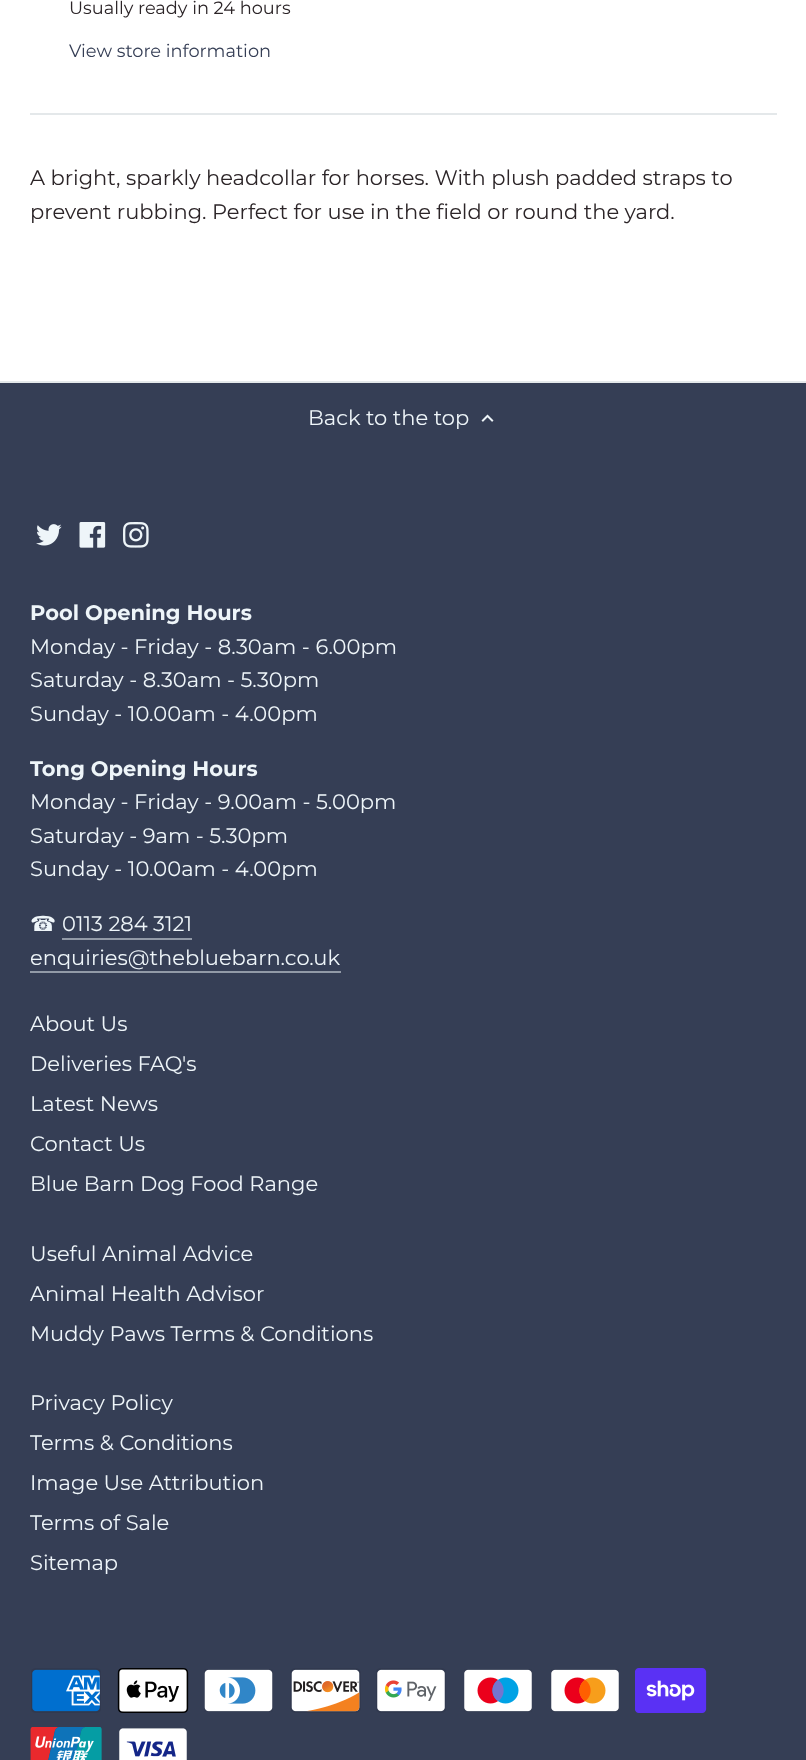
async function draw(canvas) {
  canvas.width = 806;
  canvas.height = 1760;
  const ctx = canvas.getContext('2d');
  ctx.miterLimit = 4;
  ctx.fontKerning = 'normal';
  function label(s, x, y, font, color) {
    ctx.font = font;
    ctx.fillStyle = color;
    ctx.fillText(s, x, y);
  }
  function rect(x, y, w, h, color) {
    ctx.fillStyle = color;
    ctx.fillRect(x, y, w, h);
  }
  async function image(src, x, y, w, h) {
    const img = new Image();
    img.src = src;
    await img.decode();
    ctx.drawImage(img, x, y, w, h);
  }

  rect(0, 0, 806, 1760, '#353e55');
  rect(0, 0, 806, 381, '#fff');
  label('Usually ready in 24 hours', 69, 14, '17.8px Montserrat', '#2c2528');
  label('View store information', 69, 57, '17.8px Montserrat', '#353e55');
  rect(30, 113, 747, 2, '#e4e8ea');
  label('A bright, sparkly headcollar for horses. With plush padded straps to', 30, 185, '21px Montserrat', '#2c2528');
  label('prevent rubbing. Perfect for use in the field or round the yard.', 30, 219, '21px Montserrat', '#2c2528');
  rect(0, 381, 806, 2, '#e4e8ea');
  label('Back to the top', 308, 425, '21px Montserrat', '#eef5f9');
  await image('assets/img1.png', 481, 414, 13, 8);
  await image('assets/img2.png', 36, 524, 26, 22);
  await image('assets/img3.png', 79, 522, 27, 26);
  await image('assets/img4.png', 123, 522, 26, 26);
  label('Pool Opening Hours', 30, 620, 'bold 21px Montserrat', '#eef5f9');
  label('Monday - Friday - 8.30am - 6.00pm', 30, 654, '21px Montserrat', '#eef5f9');
  label('Saturday - 8.30am - 5.30pm', 30, 687, '21px Montserrat', '#eef5f9');
  label('Sunday - 10.00am - 4.00pm', 30, 721, '21px Montserrat', '#eef5f9');
  label('Tong Opening Hours', 30, 776, 'bold 21px Montserrat', '#eef5f9');
  label('Monday - Friday - 9.00am - 5.00pm', 30, 809, '21px Montserrat', '#eef5f9');
  label('Saturday - 9am - 5.30pm', 30, 843, '21px Montserrat', '#eef5f9');
  label('Sunday - 10.00am - 4.00pm', 30, 876, '21px Montserrat', '#eef5f9');
  label('☎︎', 30, 931, '21px DejaVu Sans', '#eef5f9');
  label('0113 284 3121', 62, 931, '21px Montserrat', '#eef5f9');
  rect(62, 938, 130, 2, '#929aa7');
  label('enquiries@thebluebarn.co.uk', 30, 965, '21px Montserrat', '#eef5f9');
  rect(30, 971, 311, 2, '#929aa7');
  label('About Us', 30, 1031, '21px Montserrat', '#eef5f9');
  label('Deliveries FAQ\'s', 30, 1071, '21px Montserrat', '#eef5f9');
  label('Latest News', 30, 1111, '21px Montserrat', '#eef5f9');
  label('Contact Us', 30, 1151, '21px Montserrat', '#eef5f9');
  label('Blue Barn Dog Food Range', 30, 1191, '21px Montserrat', '#eef5f9');
  label('Useful Animal Advice', 30, 1261, '21px Montserrat', '#eef5f9');
  label('Animal Health Advisor', 30, 1301, '21px Montserrat', '#eef5f9');
  label('Muddy Paws Terms & Conditions', 30, 1341, '21px Montserrat', '#eef5f9');
  label('Privacy Policy', 30, 1410, '21px Montserrat', '#eef5f9');
  label('Terms & Conditions', 30, 1450, '21px Montserrat', '#eef5f9');
  label('Image Use Attribution', 30, 1490, '21px Montserrat', '#eef5f9');
  label('Terms of Sale', 30, 1530, '21px Montserrat', '#eef5f9');
  label('Sitemap', 30, 1570, '21px Montserrat', '#eef5f9');
  await image('assets/img5.png', 31, 1668, 70, 45);
  await image('assets/img6.png', 117, 1668, 72, 45);
  await image('assets/img7.png', 204, 1669, 69, 43);
  await image('assets/img8.png', 290, 1668, 71, 45);
  await image('assets/img9.png', 376, 1668, 70, 45);
  await image('assets/img10.png', 464, 1669, 68, 43);
  await image('assets/img11.png', 551, 1669, 68, 43);
  await image('assets/img12.png', 635, 1668, 72, 45);
  await image('assets/img13.png', 30, 1727, 72, 33);
  await image('assets/img14.png', 119, 1728, 68, 32);
}

draw(document.querySelector('canvas'));
